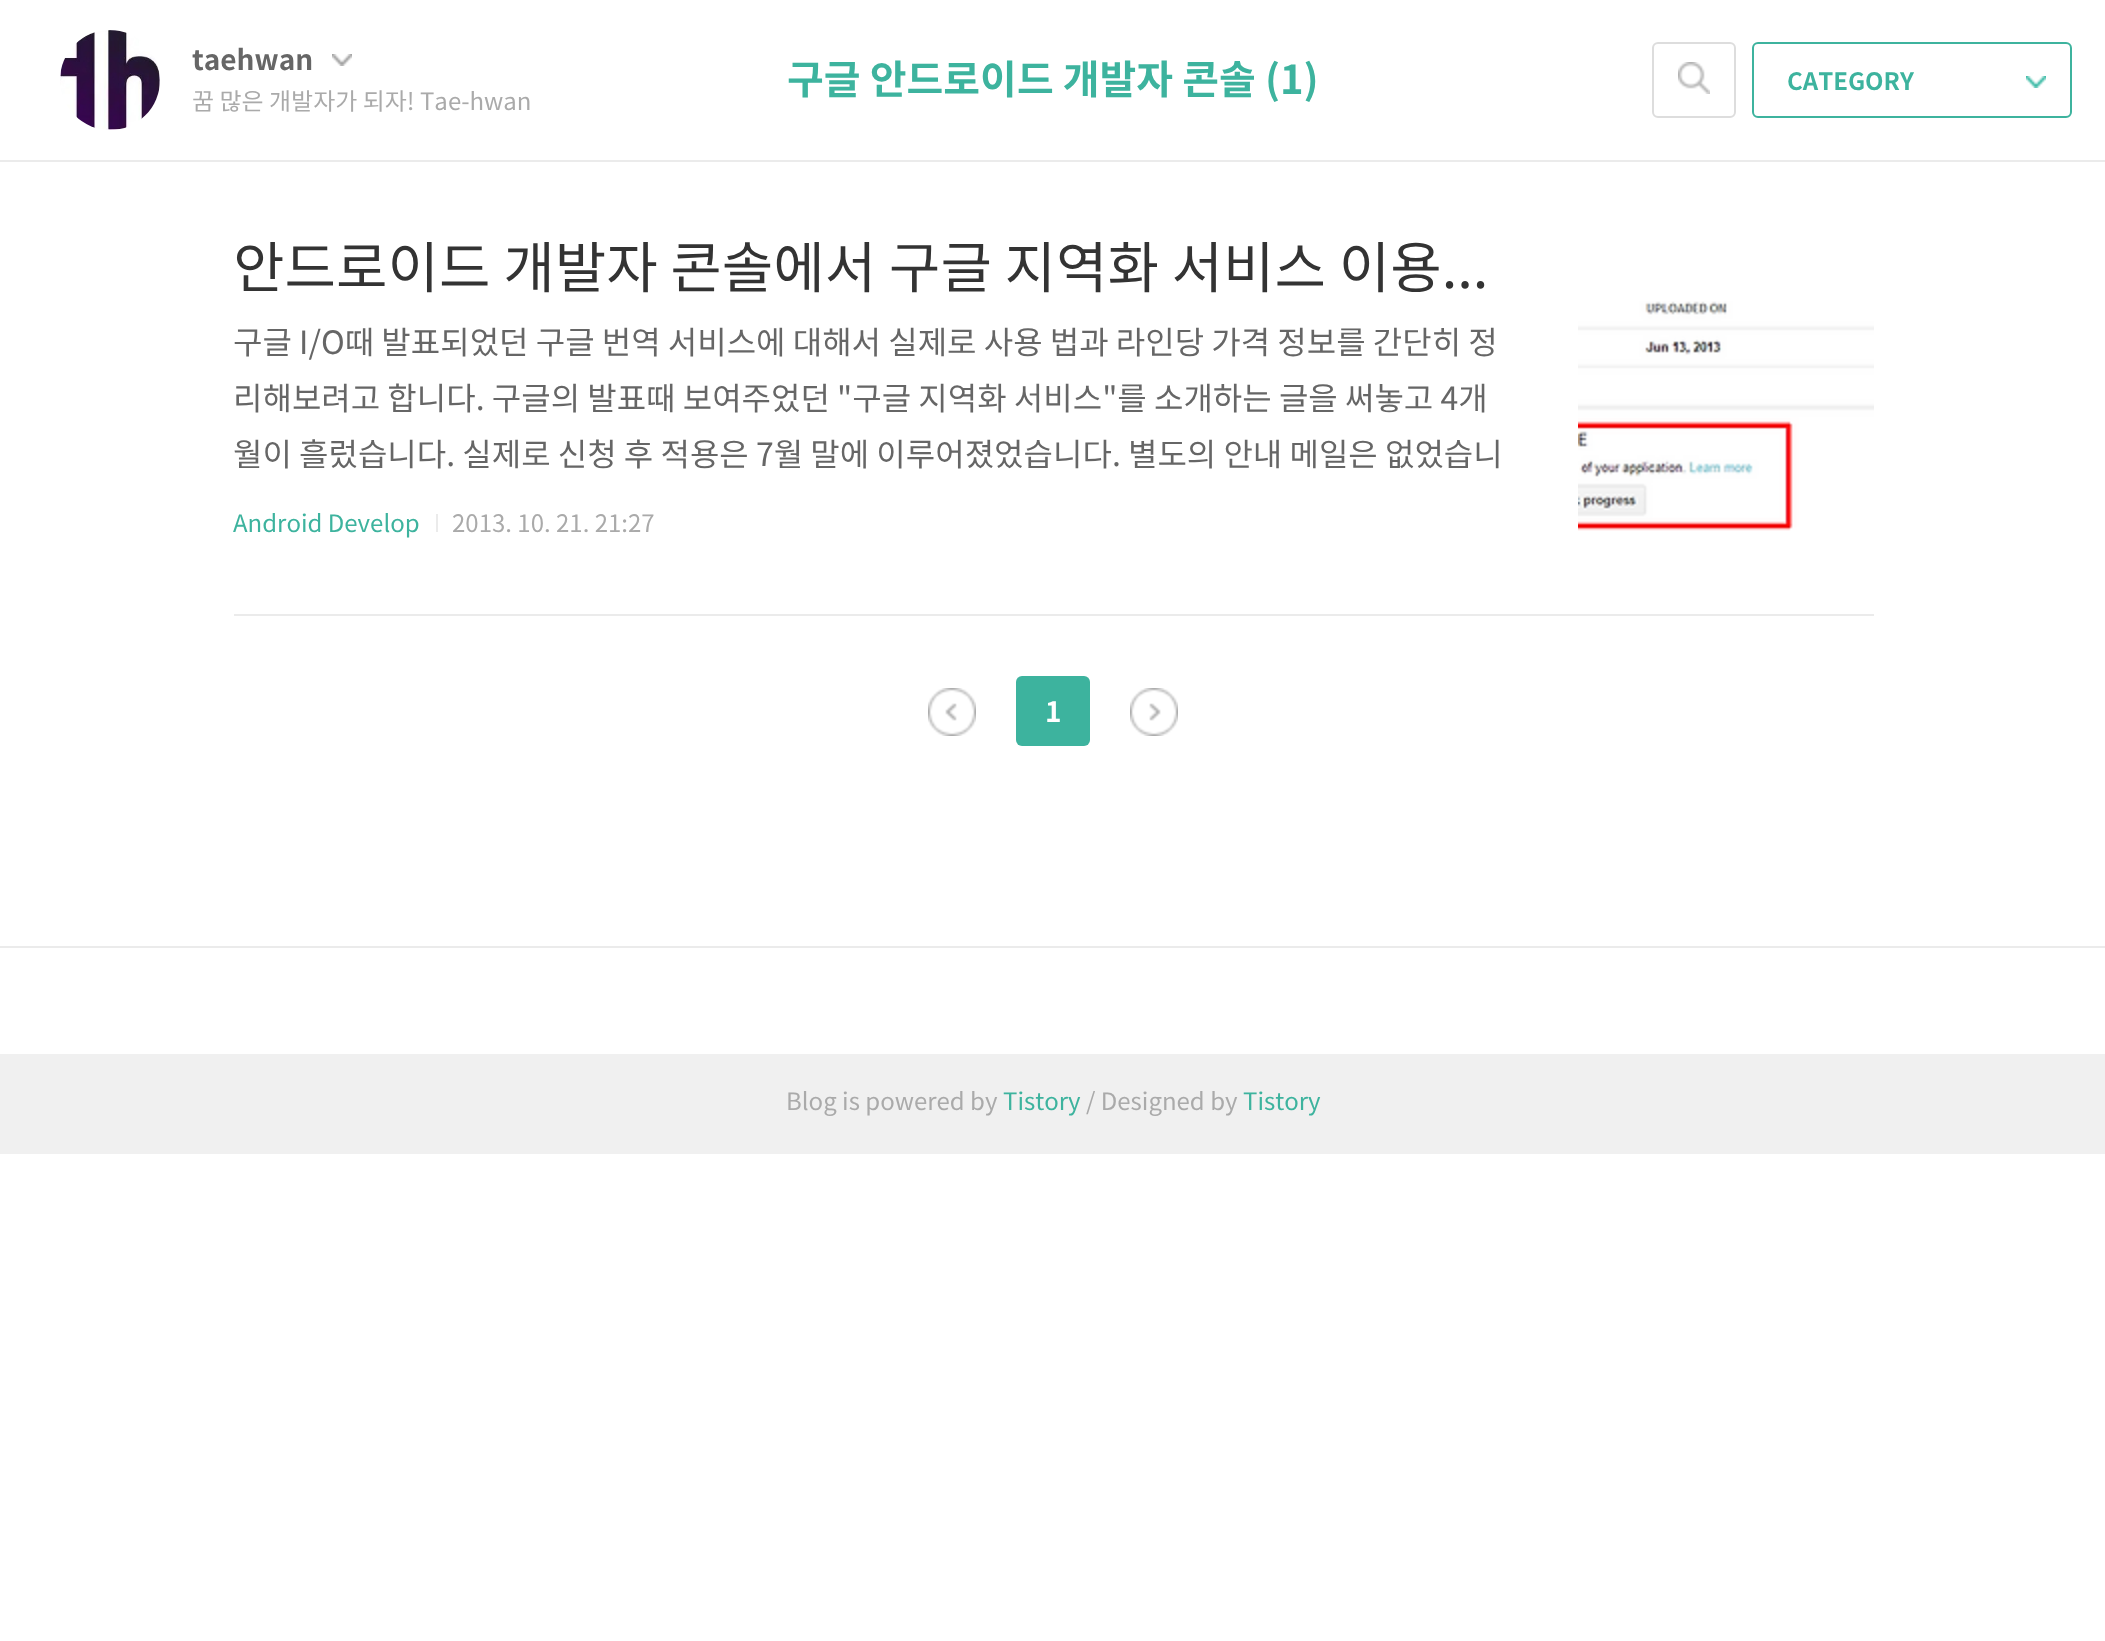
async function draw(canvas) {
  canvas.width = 2105;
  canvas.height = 1641;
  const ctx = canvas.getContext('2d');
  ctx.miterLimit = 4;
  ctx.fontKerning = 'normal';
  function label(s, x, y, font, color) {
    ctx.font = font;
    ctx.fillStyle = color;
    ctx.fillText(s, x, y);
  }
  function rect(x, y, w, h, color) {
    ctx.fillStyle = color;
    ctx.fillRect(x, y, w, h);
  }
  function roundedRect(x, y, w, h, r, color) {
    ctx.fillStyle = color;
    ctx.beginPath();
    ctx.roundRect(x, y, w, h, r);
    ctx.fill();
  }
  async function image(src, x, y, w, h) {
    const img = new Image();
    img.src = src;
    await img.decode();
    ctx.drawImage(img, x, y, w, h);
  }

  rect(0, 0, 2105, 1641, '#fff');
  rect(0, 160, 2105, 2, '#ebebeb');
  await image('assets/img1.png', 60, 30, 100, 100);
  label('taehwan', 192, 70, 'bold 28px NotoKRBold', '#666');
  await image('assets/img2.png', 332, 54, 20, 12);
  label('꿈 많은 개발자가 되자! Tae-hwan', 192, 110, '24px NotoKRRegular', '#aaa');
  label('구글 안드로이드 개발자 콘솔 (1)', 787, 94, 'bold 40px NotoKRBold', '#3db39e');
  ctx.beginPath();
  ctx.roundRect(1653, 43, 82, 74, 5);
  ctx.strokeStyle = '#ddd';
  ctx.lineWidth = 2;
  ctx.stroke();
  await image('assets/img3.png', 1678, 62, 32, 32);
  ctx.beginPath();
  ctx.roundRect(1753, 43, 318, 74, 5);
  ctx.strokeStyle = '#3db39e';
  ctx.stroke();
  label('CATEGORY', 1787, 90, 'bold 24px NotoKRBold', '#3db39e');
  await image('assets/img4.png', 2026, 76, 20, 12);
  rect(234, 614, 1640, 2, '#ebebeb');
  label('안드로이드 개발자 콘솔에서 구글 지역화 서비스 이용...', 233, 288, '56px NotoKRRegular', '#333');
  label('구글 I/O때 발표되었던 구글 번역 서비스에 대해서 실제로 사용 법과 라인당 가격 정보를 간단히 정', 233, 354, '32px NotoKRRegular', '#666');
  label('리해보려고 합니다. 구글의 발표때 보여주었던 "구글 지역화 서비스"를 소개하는 글을 써놓고 4개', 233, 410, '32px NotoKRRegular', '#666');
  label('월이 흘렀습니다. 실제로 신청 후 적용은 7월 말에 이루어졌었습니다. 별도의 안내 메일은 없었습니', 233, 466, '32px NotoKRRegular', '#666');
  await image('assets/img5.png', 1578, 301, 296, 230);
  label('Android Develop', 233, 532, '24px NotoKRRegular', '#3db39e');
  rect(436, 514, 2, 18, '#ebebeb');
  label('2013. 10. 21. 21:27', 452, 532, '24px NotoKRRegular', '#aaa');
  await image('assets/img6.png', 928, 688, 48, 48);
  roundedRect(1016, 676, 74, 70, 6, '#3db39e');
  label('1', 1045, 722, 'bold 28px NotoKRBold', '#fff');
  await image('assets/img7.png', 1130, 688, 48, 48);
  rect(0, 946, 2105, 2, '#ebebeb');
  rect(0, 1054, 2105, 100, '#f0f0f0');
  label('Blog is powered by', 786, 1110, '24px NotoKRRegular', '#aaa');
  label('Tistory', 1003, 1110, '24px NotoKRRegular', '#3db39e');
  label('/ Designed by', 1086, 1110, '24px NotoKRRegular', '#aaa');
  label('Tistory', 1243, 1110, '24px NotoKRRegular', '#3db39e');
}

draw(document.querySelector('canvas'));
